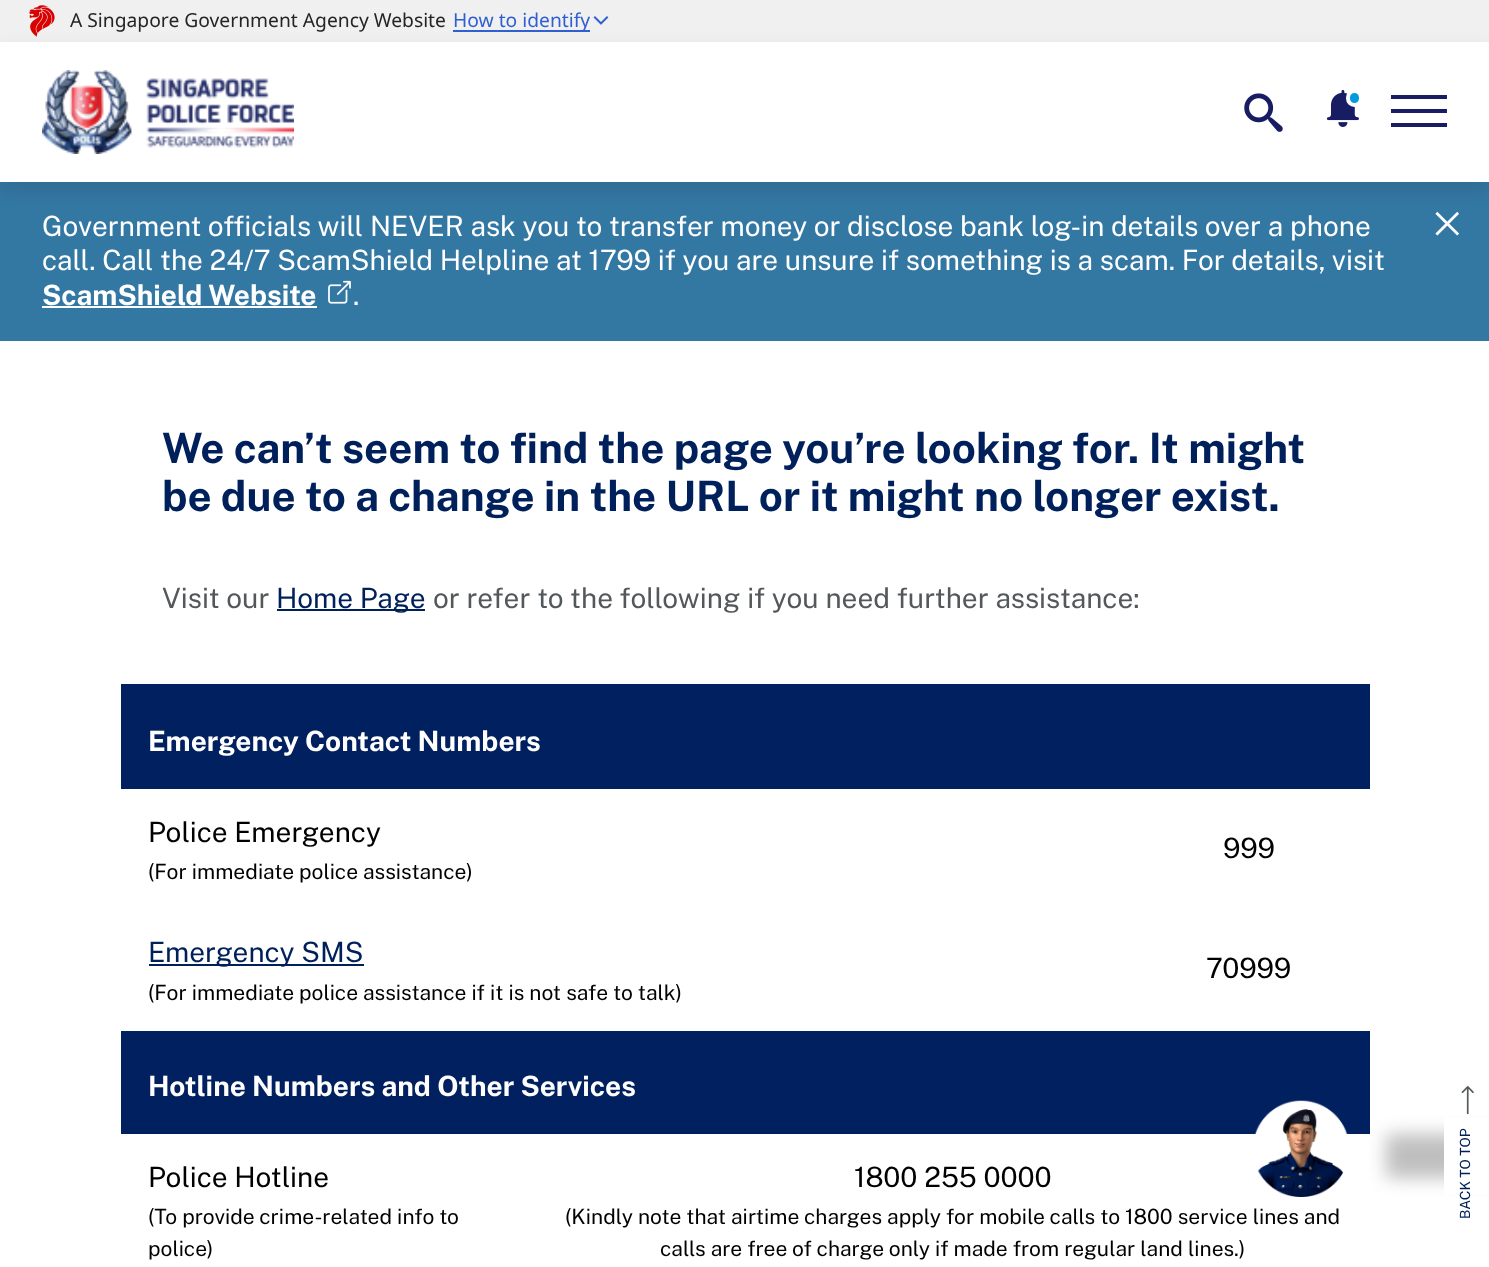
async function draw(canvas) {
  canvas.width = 1489;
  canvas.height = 1267;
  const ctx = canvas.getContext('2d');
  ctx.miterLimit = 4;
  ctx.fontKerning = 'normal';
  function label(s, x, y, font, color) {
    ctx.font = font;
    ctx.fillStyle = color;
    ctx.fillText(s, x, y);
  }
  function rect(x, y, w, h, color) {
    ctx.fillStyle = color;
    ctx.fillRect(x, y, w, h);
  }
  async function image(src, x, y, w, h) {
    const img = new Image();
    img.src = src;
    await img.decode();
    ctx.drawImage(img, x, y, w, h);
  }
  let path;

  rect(0, 0, 1489, 1267, '#fff');
  rect(0, 0, 1489, 42, '#f0f0f0');
  await image('assets/img1.png', 29, 5, 26, 32);
  label('A Singapore Government Agency Website', 70, 27, '19.25px Noto Sans', '#252525');
  rect(453, 30, 137, 2, '#2f5fd0');
  label('How to identify', 453, 27, '19.25px Noto Sans', '#2f5fd0');
  await image('assets/img2.png', 593, 16, 16, 9);
  rect(0, 182, 1489, 159, '#3377a3');
  await image('assets/img7.png', 1435, 211, 24, 25);
  ctx.save();
  path = new Path2D('M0 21H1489V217H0ZM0 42H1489V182H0Z');
  ctx.clip(path, 'evenodd');
  ctx.fillStyle = '#0000001a';
  ctx.filter = 'blur(9px)';
  ctx.beginPath();
  ctx.rect(0, 49, 1489, 140);
  ctx.fill();
  ctx.filter = 'none';
  ctx.restore();
  await image('assets/img3.png', 42, 70, 252, 84);
  await image('assets/img4.png', 1244, 93, 39, 39);
  await image('assets/img5.png', 1326, 89, 33, 38);
  ctx.fillStyle = '#009cde';
  ctx.beginPath();
  ctx.roundRect(1348, 91, 13, 14, 6.5);
  ctx.fill();
  ctx.strokeStyle = '#fff';
  ctx.lineWidth = 4;
  ctx.stroke();
  rect(1391, 95, 56, 4, '#181c62');
  rect(1391, 109, 56, 4, '#181c62');
  rect(1391, 123, 56, 4, '#181c62');
  label('Government officials will NEVER ask you to transfer money or disclose bank log-in details over a phone', 42, 236, '28px Public Sans', '#fff');
  label('call. Call the 24/7 ScamShield Helpline at 1799 if you are unsure if something is a scam. For details, visit', 42, 270, '28px Public Sans', '#fff');
  label('ScamShield Website', 42, 305, 'bold 28px Public Sans', '#fff');
  rect(42, 306, 275, 2, '#fff');
  await image('assets/img6.png', 328, 280, 23, 24);
  label('.', 353, 305, '28px Public Sans', '#fff');
  label('We can’t seem to find the page you’re looking for. It might', 162, 463, 'bold 42px Public Sans', '#00205b');
  label('be due to a change in the URL or it might no longer exist.', 162, 511, 'bold 42px Public Sans', '#00205b');
  label('Visit our', 162, 608, '28px Public Sans', '#54585a');
  rect(277, 609, 148, 2, '#00205b');
  label('Home Page', 276, 608, '28px Public Sans', '#00205b');
  label('or refer to the following if you need further assistance:', 433, 608, '28px Public Sans', '#54585a');
  rect(121, 684, 1249, 105, '#002060');
  label('Emergency Contact Numbers', 148, 751, 'bold 28px Public Sans', '#fff');
  label('Police Emergency', 148, 842, '28px Public Sans', '#000');
  label('(For immediate police assistance)', 148, 879, '21px Public Sans', '#000');
  label('999', 1223, 858, '28px Public Sans', '#000');
  rect(149, 964, 215, 2, '#00205b');
  label('Emergency SMS', 148, 962, '28px Public Sans', '#00205b');
  label('(For immediate police assistance if it is not safe to talk)', 148, 1000, '21px Public Sans', '#000');
  label('70999', 1206, 978, '28px Public Sans', '#000');
  rect(121, 1031, 1249, 103, '#002060');
  label('Hotline Numbers and Other Services', 148, 1096, 'bold 28px Public Sans', '#fff');
  label('Police Hotline', 148, 1187, '28px Public Sans', '#000');
  label('(To provide crime-related info to', 148, 1224, '21px Public Sans', '#000');
  label('police)', 148, 1256, '21px Public Sans', '#000');
  label('1800 255 0000', 854, 1187, '28px Public Sans', '#000');
  label('(Kindly note that airtime charges apply for mobile calls to 1800 service lines and', 565, 1224, '21px Public Sans', '#000');
  label('calls are free of charge only if made from regular land lines.)', 660, 1256, '21px Public Sans', '#000');
  ctx.fillStyle = '#00000040';
  ctx.filter = 'blur(9px)';
  ctx.beginPath();
  ctx.rect(1386, 1134, 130, 44);
  ctx.fill();
  ctx.filter = 'none';
  rect(1444, 1118, 45, 76, '#fff');
  await image('assets/img8.png', 1461, 1086, 13, 28);
  ctx.font = '14px Public Sans';
  ctx.fillStyle = '#00205b';
  ctx.save();
  ctx.translate(1470, 1219);
  ctx.rotate(-90 * Math.PI / 180);
  ctx.fillText('BACK TO TOP', 0, 0);
  ctx.restore();
  await image('assets/img9.png', 1254, 1100, 94, 97);
}

draw(document.querySelector('canvas'));
